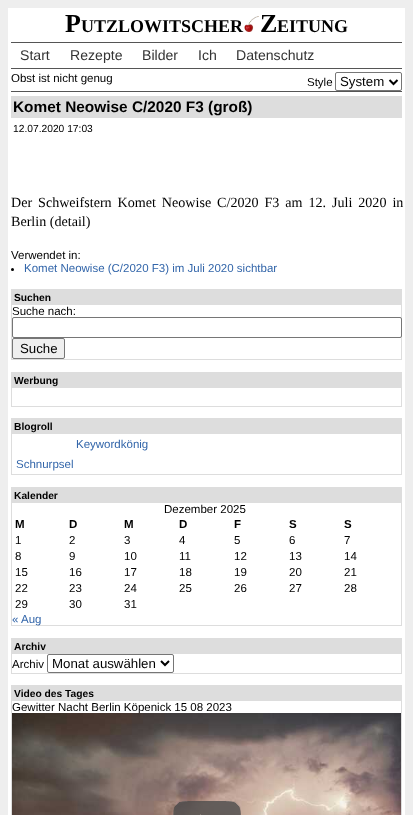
async function draw(canvas) {
  canvas.width = 413;
  canvas.height = 815;
  const ctx = canvas.getContext('2d');
  ctx.miterLimit = 4;
  ctx.fontKerning = 'normal';
  function label(s, x, y, font, color) {
    ctx.font = font;
    ctx.fillStyle = color;
    ctx.fillText(s, x, y);
  }
  function rect(x, y, w, h, color) {
    ctx.fillStyle = color;
    ctx.fillRect(x, y, w, h);
  }
  async function image(src, x, y, w, h) {
    const img = new Image();
    img.src = src;
    await img.decode();
    ctx.drawImage(img, x, y, w, h);
  }
  let path;

  rect(0, 0, 413, 815, '#eee');
  rect(8, 8, 397, 807, '#fff');
  label('P', 65, 32, 'bold 26px Liberation Serif', '#000');
  label('UTZLOWITSCHER', 81, 32, 'bold 18px Liberation Serif', '#000');
  await image('assets/img1.png', 244, 16, 15, 16);
  label('Z', 260, 32, 'bold 26px Liberation Serif', '#000');
  label('EITUNG', 277, 32, 'bold 18px Liberation Serif', '#000');
  rect(11, 42, 391, 1, '#555');
  label('Start', 20, 60, '14.1px Liberation Sans', '#333');
  label('Rezepte', 70, 60, '14.1px Liberation Sans', '#333');
  label('Bilder', 142, 60, '14.1px Liberation Sans', '#333');
  label('Ich', 198, 60, '14.1px Liberation Sans', '#333');
  label('Datenschutz', 236, 60, '14.1px Liberation Sans', '#333');
  rect(11, 68, 391, 1, '#555');
  label('Obst ist nicht genug', 11, 82, '11.5px Liberation Sans', '#000');
  label('Style', 307, 86, '11.5px Liberation Sans', '#000');
  ctx.beginPath();
  ctx.roundRect(335.5, 72.5, 66, 18, 1.5);
  ctx.strokeStyle = '#767676';
  ctx.stroke();
  path = new Path2D('M389.5 80L393.5 84L397.5 80');
  ctx.strokeStyle = '#000';
  ctx.lineWidth = 2;
  ctx.stroke(path);
  label('System', 340, 86, '13.25px Liberation Sans', '#000');
  rect(11, 91, 391, 1, '#555');
  rect(11, 96, 391, 22, '#ddd');
  label('Komet Neowise C/2020 F3 (groß)', 13, 112, 'bold 15.4px Liberation Sans', '#000');
  label('12.07.2020 17:03', 13, 132, '10.25px Liberation Sans', '#000');
  ctx.wordSpacing = '2.4px';
  label('Der Schweifstern Komet Neowise C/2020 F3 am 12. Juli 2020 in', 11, 207, '14.1px Liberation Serif', '#000');
  ctx.wordSpacing = '0px';
  label('Berlin (detail)', 11, 226, '14.1px Liberation Serif', '#000');
  label('Verwendet in:', 11, 259, '11.5px Liberation Sans', '#000');
  ctx.beginPath();
  ctx.arc(12.5, 269.5, 1.5, 0, 2 * Math.PI);
  ctx.fill();
  label('Komet Neowise (C/2020 F3) im Juli 2020 sichtbar', 24, 272, '11.5px Liberation Sans', '#36a');
  ctx.strokeStyle = '#ddd';
  ctx.lineWidth = 1;
  ctx.strokeRect(11.5, 289.5, 390, 70);
  rect(12, 290, 389, 15, '#ddd');
  label('Suchen', 14, 301, 'bold 10.25px Liberation Sans', '#000');
  label('Suche nach:', 12, 315, '11.5px Liberation Sans', '#000');
  ctx.fillStyle = '#fff';
  ctx.beginPath();
  ctx.roundRect(12.5, 317.5, 389, 20, 1.5);
  ctx.fill();
  ctx.strokeStyle = '#767676';
  ctx.stroke();
  ctx.fillStyle = '#efefef';
  ctx.beginPath();
  ctx.roundRect(12.5, 338.5, 52, 20, 1.5);
  ctx.fill();
  ctx.stroke();
  label('Suche', 20, 353, '13.25px Liberation Sans', '#000');
  ctx.strokeStyle = '#ddd';
  ctx.strokeRect(11.5, 372.5, 390, 34);
  rect(12, 373, 389, 15, '#ddd');
  label('Werbung', 14, 384, 'bold 10.25px Liberation Sans', '#000');
  ctx.strokeRect(11.5, 418.5, 390, 56);
  rect(12, 419, 389, 15, '#ddd');
  label('Blogroll', 14, 430, 'bold 10.25px Liberation Sans', '#000');
  label('Keywordkönig', 76, 448, '11.5px Liberation Sans', '#36a');
  label('Schnurpsel', 16, 468, '11.5px Liberation Sans', '#36a');
  ctx.strokeRect(11.5, 487.5, 390, 138);
  rect(12, 488, 389, 15, '#ddd');
  label('Kalender', 14, 499, 'bold 10.25px Liberation Sans', '#000');
  label('Dezember 2025', 164, 513, '11.5px Liberation Sans', '#000');
  label('M', 15, 528, 'bold 11.5px Liberation Sans', '#000');
  label('D', 69, 528, 'bold 11.5px Liberation Sans', '#000');
  label('M', 124, 528, 'bold 11.5px Liberation Sans', '#000');
  label('D', 179, 528, 'bold 11.5px Liberation Sans', '#000');
  label('F', 234, 528, 'bold 11.5px Liberation Sans', '#000');
  label('S', 289, 528, 'bold 11.5px Liberation Sans', '#000');
  label('S', 344, 528, 'bold 11.5px Liberation Sans', '#000');
  label('1', 15, 544, '11.5px Liberation Sans', '#000');
  label('2', 69, 544, '11.5px Liberation Sans', '#000');
  label('3', 124, 544, '11.5px Liberation Sans', '#000');
  label('4', 179, 544, '11.5px Liberation Sans', '#000');
  label('5', 234, 544, '11.5px Liberation Sans', '#000');
  label('6', 289, 544, '11.5px Liberation Sans', '#000');
  label('7', 344, 544, '11.5px Liberation Sans', '#000');
  label('8', 15, 560, '11.5px Liberation Sans', '#000');
  label('9', 69, 560, '11.5px Liberation Sans', '#000');
  label('10', 124, 560, '11.5px Liberation Sans', '#000');
  label('11', 179, 560, '11.5px Liberation Sans', '#000');
  label('12', 234, 560, '11.5px Liberation Sans', '#000');
  label('13', 289, 560, '11.5px Liberation Sans', '#000');
  label('14', 344, 560, '11.5px Liberation Sans', '#000');
  label('15', 15, 576, '11.5px Liberation Sans', '#000');
  label('16', 69, 576, '11.5px Liberation Sans', '#000');
  label('17', 124, 576, '11.5px Liberation Sans', '#000');
  label('18', 179, 576, '11.5px Liberation Sans', '#000');
  label('19', 234, 576, '11.5px Liberation Sans', '#000');
  label('20', 289, 576, '11.5px Liberation Sans', '#000');
  label('21', 344, 576, '11.5px Liberation Sans', '#000');
  label('22', 15, 592, '11.5px Liberation Sans', '#000');
  label('23', 69, 592, '11.5px Liberation Sans', '#000');
  label('24', 124, 592, '11.5px Liberation Sans', '#000');
  label('25', 179, 592, '11.5px Liberation Sans', '#000');
  label('26', 234, 592, '11.5px Liberation Sans', '#000');
  label('27', 289, 592, '11.5px Liberation Sans', '#000');
  label('28', 344, 592, '11.5px Liberation Sans', '#000');
  label('29', 15, 608, '11.5px Liberation Sans', '#000');
  label('30', 69, 608, '11.5px Liberation Sans', '#000');
  label('31', 124, 608, '11.5px Liberation Sans', '#000');
  label('« Aug', 12, 623, '11.5px Liberation Sans', '#36a');
  ctx.strokeRect(11.5, 638.5, 390, 35);
  rect(12, 639, 389, 15, '#ddd');
  label('Archiv', 14, 650, 'bold 10.25px Liberation Sans', '#000');
  label('Archiv', 12, 668, '11.5px Liberation Sans', '#000');
  ctx.beginPath();
  ctx.roundRect(47.5, 654.5, 126, 18, 1.5);
  ctx.strokeStyle = '#767676';
  ctx.stroke();
  path = new Path2D('M161 661L165 665L169 661');
  ctx.strokeStyle = '#000';
  ctx.lineWidth = 2;
  ctx.stroke(path);
  label('Monat auswählen', 52, 668, '13.25px Liberation Sans', '#000');
  ctx.strokeStyle = '#ddd';
  ctx.lineWidth = 1;
  ctx.strokeRect(11.5, 685.5, 390, 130);
  rect(12, 686, 389, 15, '#ddd');
  label('Video des Tages', 14, 697, 'bold 10.25px Liberation Sans', '#000');
  label('Gewitter Nacht Berlin Köpenick 15 08 2023', 12, 711, '11.5px Liberation Sans', '#000');
  await image('assets/img2.png', 12, 713, 389, 102);
  await image('assets/img3.png', 173, 801, 68, 14);
}

draw(document.querySelector('canvas'));
